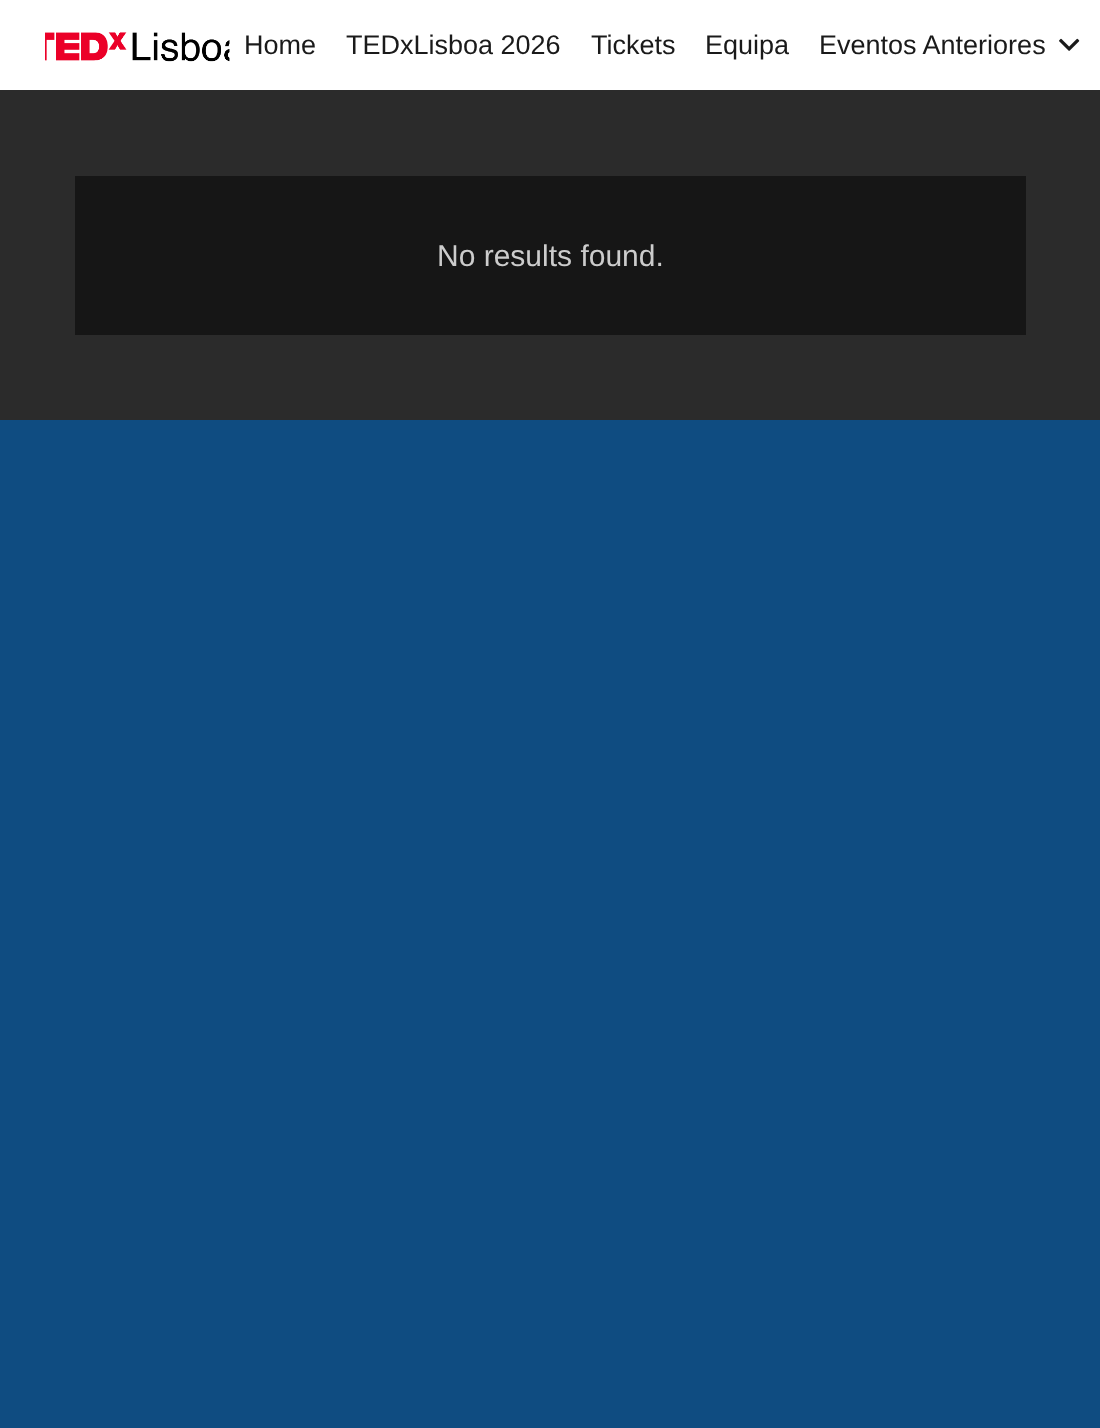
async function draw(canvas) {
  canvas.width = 1100;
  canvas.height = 1428;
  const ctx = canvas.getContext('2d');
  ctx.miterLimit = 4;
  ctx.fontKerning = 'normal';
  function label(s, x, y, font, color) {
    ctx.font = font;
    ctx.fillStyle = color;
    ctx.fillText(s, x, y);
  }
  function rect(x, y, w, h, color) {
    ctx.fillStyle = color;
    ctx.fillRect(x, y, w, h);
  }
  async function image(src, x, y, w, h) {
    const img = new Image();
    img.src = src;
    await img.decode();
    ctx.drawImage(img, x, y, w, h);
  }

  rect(0, 0, 1100, 1428, '#0f4c81');
  rect(0, 90, 1100, 330, '#2b2b2b');
  rect(0, 0, 1100, 90, '#fff');
  await image('assets/img1.png', 45, 32, 185, 30);
  label('Home', 244, 54, '27px Liberation Sans', '#1a1a1a');
  label('TEDxLisboa 2026', 346, 54, '27px Liberation Sans', '#1a1a1a');
  label('Tickets', 591, 54, '27px Liberation Sans', '#1a1a1a');
  label('Equipa', 705, 54, '27px Liberation Sans', '#1a1a1a');
  label('Eventos Anteriores', 819, 54, '27px Liberation Sans', '#1a1a1a');
  await image('assets/img2.png', 1059, 38, 21, 13);
  rect(75, 176, 951, 159, '#161616');
  label('No results found.', 437, 266, '30px Liberation Sans', '#ccc');
}

draw(document.querySelector('canvas'));
